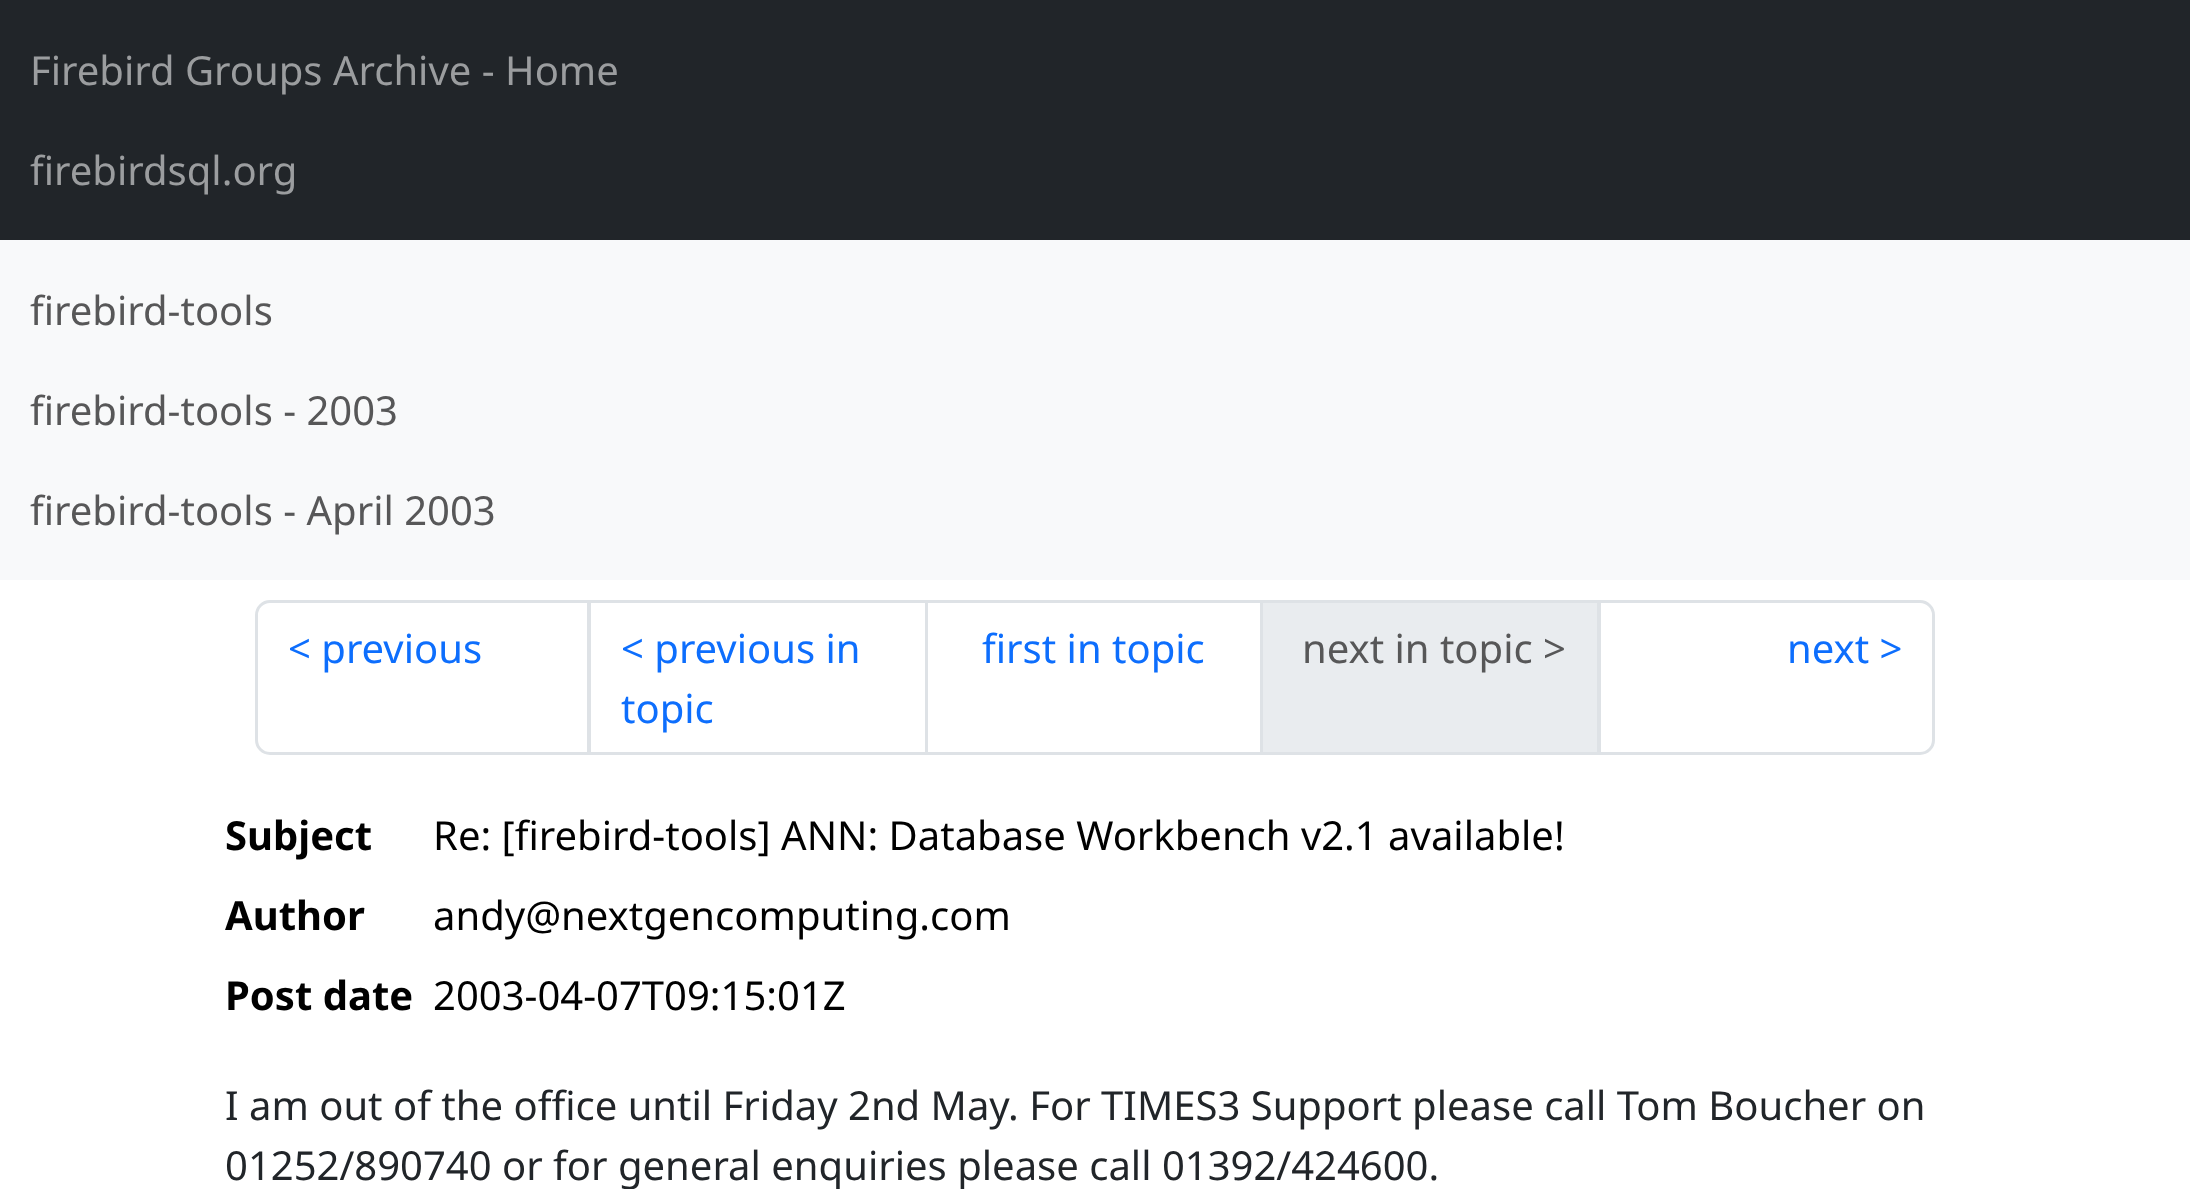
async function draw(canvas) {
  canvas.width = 2190;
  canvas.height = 1189;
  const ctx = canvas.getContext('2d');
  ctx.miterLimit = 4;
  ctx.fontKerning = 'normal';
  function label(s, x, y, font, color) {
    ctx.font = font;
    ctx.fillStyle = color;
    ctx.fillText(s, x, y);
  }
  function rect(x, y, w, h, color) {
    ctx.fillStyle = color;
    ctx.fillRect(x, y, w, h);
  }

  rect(0, 0, 2190, 1189, '#fff');
  rect(0, 0, 2190, 240, '#212529');
  label('Firebird Groups Archive - Home', 30, 85, '40px Noto Sans', '#9b9d9f');
  label('firebirdsql.org', 30, 185, '40px Noto Sans', '#9b9d9f');
  rect(0, 240, 2190, 340, '#f8f9fa');
  label('firebird-tools', 30, 325, '40px Noto Sans', '#575758');
  label('firebird-tools - 2003', 30, 425, '40px Noto Sans', '#575758');
  label('firebird-tools - April 2003', 30, 525, '40px Noto Sans', '#575758');
  ctx.beginPath();
  ctx.roundRect(256.5, 601.5, 332, 152, [13.5, 0, 0, 13.5]);
  ctx.strokeStyle = '#dee2e6';
  ctx.lineWidth = 3;
  ctx.stroke();
  label('< previous', 288, 663, '40px Noto Sans', '#0d6efd');
  ctx.strokeRect(589.5, 601.5, 337, 152);
  label('< previous in', 621, 663, '40px Noto Sans', '#0d6efd');
  label('topic', 621, 723, '40px Noto Sans', '#0d6efd');
  ctx.strokeRect(926.5, 601.5, 335, 152);
  label('first in topic', 982, 663, '40px Noto Sans', '#0d6efd');
  ctx.fillStyle = '#e9ecef';
  ctx.beginPath();
  ctx.rect(1261.5, 601.5, 337, 152);
  ctx.fill();
  ctx.stroke();
  label('next in topic >', 1302, 663, '40px Noto Sans', '#575758');
  ctx.fillStyle = '#fff';
  ctx.beginPath();
  ctx.roundRect(1599.5, 601.5, 334, 152, [0, 13.5, 13.5, 0]);
  ctx.fill();
  ctx.stroke();
  label('next >', 1787, 663, '40px Noto Sans', '#0d6efd');
  label('Subject', 225, 850, 'bold 40px Noto Sans', '#000');
  label('Re: [firebird-tools] ANN: Database Workbench v2.1 available!', 433, 850, '40px Noto Sans', '#000');
  label('Author', 225, 930, 'bold 40px Noto Sans', '#000');
  label('andy@nextgencomputing.com', 433, 930, '40px Noto Sans', '#000');
  label('Post date', 225, 1010, 'bold 40px Noto Sans', '#000');
  label('2003-04-07T09:15:01Z', 433, 1010, '40px Noto Sans', '#000');
  label('I am out of the office until Friday 2nd May. For TIMES3 Support please call Tom Boucher on', 225, 1120, '40px Noto Sans', '#212529');
  label('01252/890740 or for general enquiries please call 01392/424600.', 225, 1180, '40px Noto Sans', '#212529');
}

draw(document.querySelector('canvas'));
